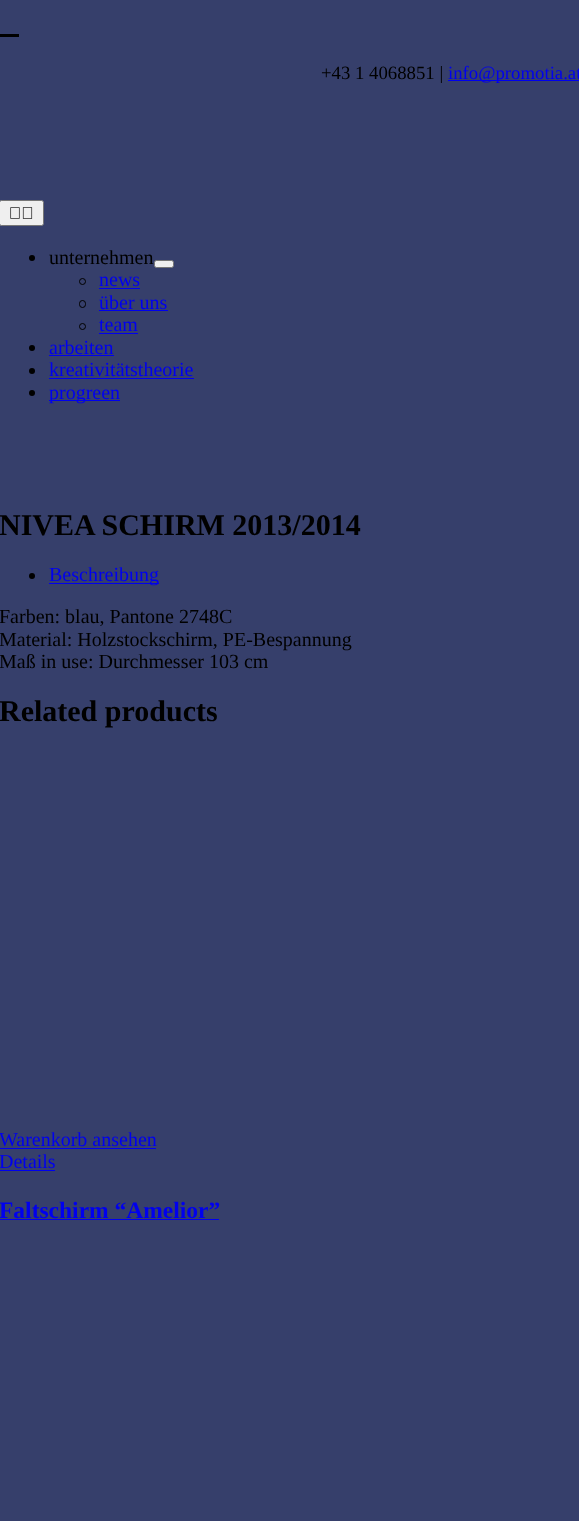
async function draw(canvas) {
  canvas.width = 579;
  canvas.height = 1521;
  const ctx = canvas.getContext('2d');
  ctx.miterLimit = 4;
  ctx.fontKerning = 'normal';
  function label(s, x, y, font, color) {
    ctx.font = font;
    ctx.fillStyle = color;
    ctx.fillText(s, x, y);
  }
  function rect(x, y, w, h, color) {
    ctx.fillStyle = color;
    ctx.fillRect(x, y, w, h);
  }
  async function image(src, x, y, w, h) {
    const img = new Image();
    img.src = src;
    await img.decode();
    ctx.drawImage(img, x, y, w, h);
  }

  rect(0, 0, 579, 1521, '#363f6b');
  rect(0, 34, 19, 3, '#000');
  label('+43 1 4068851 |', 321, 79, '18.75px Liberation Serif', '#000');
  rect(448, 80, 131, 1, '#00e');
  label('info@promotia.at', 448, 79, '18.75px Liberation Serif', '#00e');
  ctx.fillStyle = '#efefef';
  ctx.beginPath();
  ctx.roundRect(-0.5, 200.5, 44, 25, 2);
  ctx.fill();
  ctx.strokeStyle = '#767676';
  ctx.stroke();
  await image('assets/img1.png', 10, 207, 10, 12);
  await image('assets/img2.png', 22, 207, 11, 12);
  ctx.fillStyle = '#000';
  ctx.beginPath();
  ctx.arc(32, 258, 3, 0, 2 * Math.PI);
  ctx.fill();
  label('unternehmen', 49, 264, '20px Liberation Serif', '#000');
  ctx.fillStyle = '#efefef';
  ctx.beginPath();
  ctx.roundRect(154.5, 260.5, 19, 7, 2);
  ctx.fill();
  ctx.stroke();
  ctx.beginPath();
  ctx.arc(82.5, 281.5, 3, 0, 2 * Math.PI);
  ctx.strokeStyle = '#000';
  ctx.stroke();
  label('news', 99, 286, '20px Liberation Serif', '#00e');
  rect(99, 288, 41, 1, '#00e');
  ctx.beginPath();
  ctx.roundRect(79.5, 300.5, 6, 7, 3);
  ctx.stroke();
  label('über uns', 99, 309, '20px Liberation Serif', '#00e');
  rect(99, 310, 69, 1, '#00e');
  ctx.beginPath();
  ctx.arc(82.5, 326.5, 3, 0, 2 * Math.PI);
  ctx.stroke();
  label('team', 99, 331, '20px Liberation Serif', '#00e');
  rect(99, 333, 39, 1, '#00e');
  ctx.fillStyle = '#000';
  ctx.beginPath();
  ctx.arc(32, 348, 3, 0, 2 * Math.PI);
  ctx.fill();
  label('arbeiten', 49, 354, '20px Liberation Serif', '#00e');
  rect(49, 355, 65, 1, '#00e');
  ctx.fillStyle = '#000';
  ctx.beginPath();
  ctx.arc(32, 371, 3, 0, 2 * Math.PI);
  ctx.fill();
  label('kreativitätstheorie', 49, 376, '20px Liberation Serif', '#00e');
  rect(49, 378, 145, 1, '#00e');
  ctx.fillStyle = '#000';
  ctx.beginPath();
  ctx.arc(32, 393, 3, 0, 2 * Math.PI);
  ctx.fill();
  rect(49, 400, 71, 1, '#00e');
  label('progreen', 49, 399, '20px Liberation Serif', '#00e');
  label('NIVEA SCHIRM 2013/2014', -1, 535, 'bold 30px Liberation Serif', '#000');
  ctx.beginPath();
  ctx.arc(32, 576, 3, 0, 2 * Math.PI);
  ctx.fill();
  rect(49, 583, 110, 1, '#00e');
  label('Beschreibung', 49, 581, '20px Liberation Serif', '#00e');
  label('Farben: blau, Pantone 2748C', -1, 623, '20px Liberation Serif', '#000');
  label('Material: Holzstockschirm, PE-Bespannung', -1, 646, '20px Liberation Serif', '#000');
  label('Maß in use: Durchmesser 103 cm', -1, 668, '20px Liberation Serif', '#000');
  label('Related products', -1, 721, 'bold 30px Liberation Serif', '#000');
  label('Warenkorb ansehen', -1, 1146, '20px Liberation Serif', '#00e');
  rect(0, 1148, 156, 1, '#00e');
  label('Details', -1, 1168, '20px Liberation Serif', '#00e');
  rect(0, 1170, 55, 1, '#00e');
  label('Faltschirm “Amelior”', -1, 1218, 'bold 23.5px Liberation Serif', '#00e');
  rect(0, 1219, 219, 1, '#00e');
}

draw(document.querySelector('canvas'));
